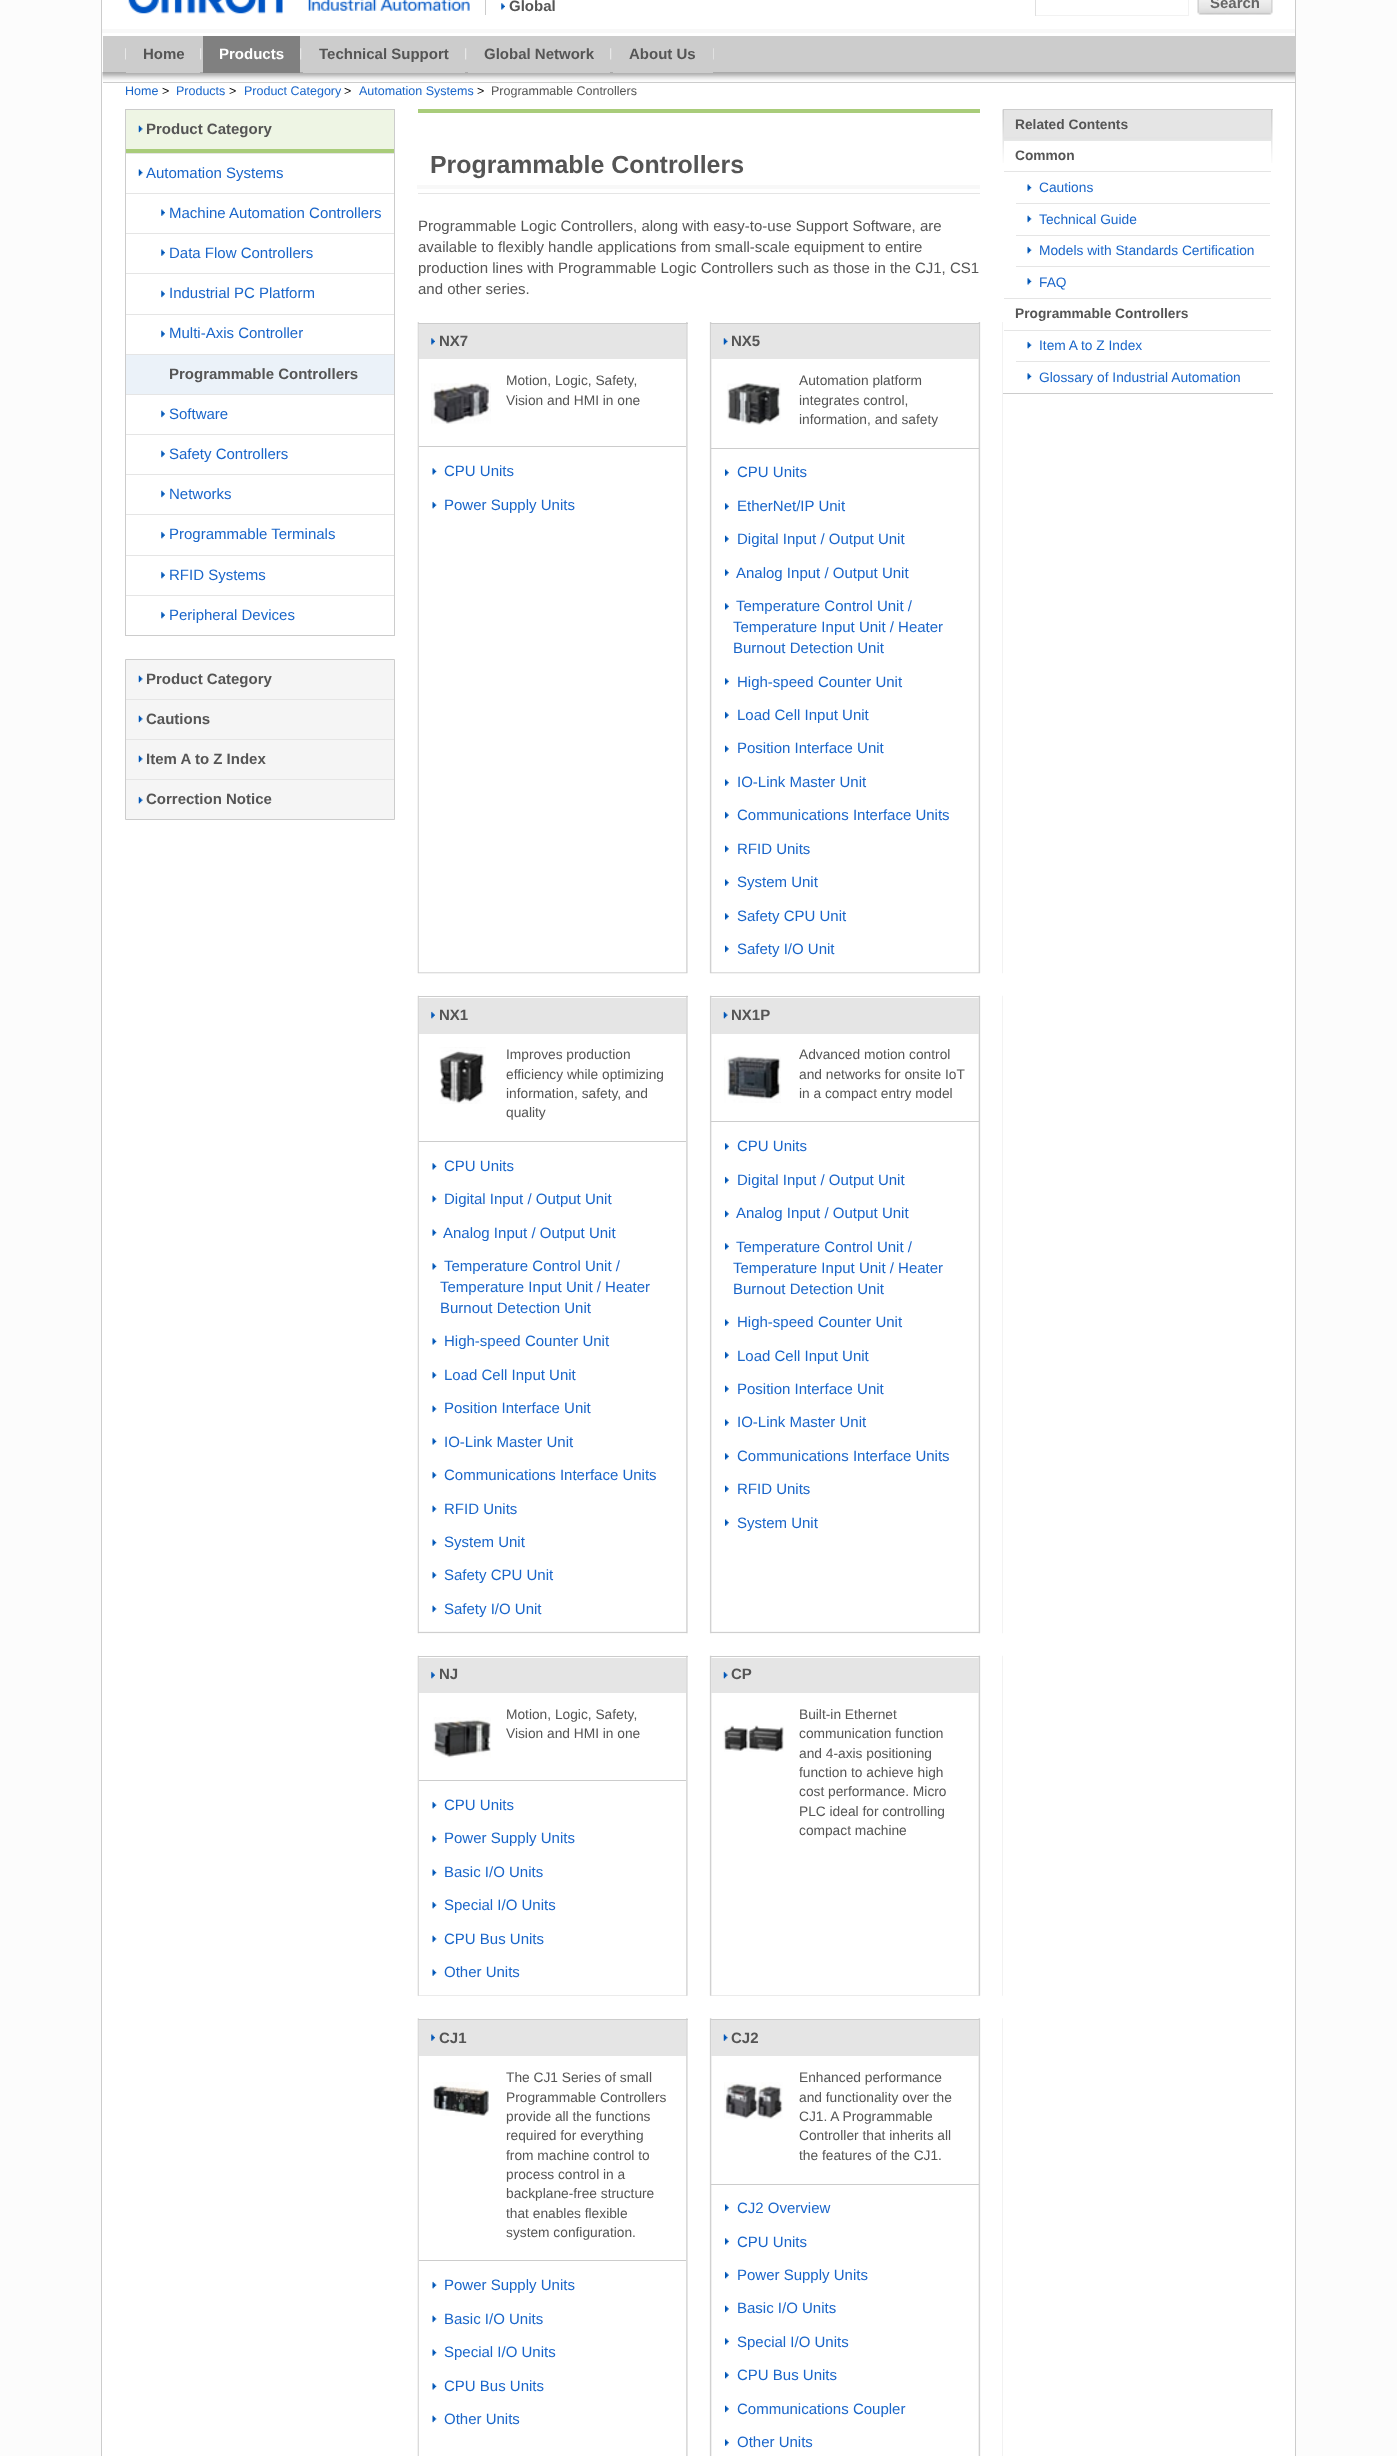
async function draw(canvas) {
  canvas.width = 1397;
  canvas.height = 2456;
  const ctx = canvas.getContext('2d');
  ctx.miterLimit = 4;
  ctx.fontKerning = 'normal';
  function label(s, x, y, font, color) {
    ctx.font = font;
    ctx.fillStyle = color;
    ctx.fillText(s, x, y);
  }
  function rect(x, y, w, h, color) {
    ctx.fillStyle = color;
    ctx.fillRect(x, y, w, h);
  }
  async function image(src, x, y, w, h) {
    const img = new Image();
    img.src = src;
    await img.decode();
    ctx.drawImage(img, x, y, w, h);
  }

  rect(0, 0, 1397, 2456, '#fcfcfc');
  rect(102, 0, 1193, 2456, '#fff');
  rect(1295, 0, 1, 2456, '#ccc');
  rect(101, 0, 1, 2456, '#ccc');
  rect(102, 29, 1193, 4, '#f8f8f8');
  await image('assets/img1.png', 128, 0, 155, 14);
  await image('assets/img2.png', 308, 0, 162, 11);
  rect(485, 0, 1, 15, '#ccc');
  await image('assets/img3.png', 501, 3, 4, 7);
  label('Global', 509, 11, 'bold 15px Liberation Sans', '#555');
  rect(1188, 0, 1, 16, '#f2f2f2');
  rect(1035, 15, 154, 1, '#f2f2f2');
  rect(1035, 0, 1, 16, '#e0e0e0');
  await image('assets/img4.png', 1197, 0, 76, 15);
  label('Search', 1210, 8, 'bold 15px Liberation Sans', '#666');
  rect(103, 36, 1192, 47, '#ccc');
  await image('assets/img5.png', 102, 72, 1193, 10);
  await image('assets/img6.png', 125, 48, 1, 12);
  await image('assets/img7.png', 200, 48, 2, 12);
  rect(126, 72, 74, 1, '#ccc');
  label('Home', 143, 59, 'bold 15px Liberation Sans', '#555');
  await image('assets/img7.png', 300, 48, 2, 12);
  rect(203, 36, 97, 37, '#808080');
  label('Products', 219, 59, 'bold 15px Liberation Sans', '#fff');
  await image('assets/img7.png', 465, 48, 2, 12);
  rect(303, 72, 162, 1, '#ccc');
  label('Technical Support', 319, 59, 'bold 15px Liberation Sans', '#555');
  await image('assets/img7.png', 610, 48, 2, 12);
  rect(468, 72, 142, 1, '#ccc');
  label('Global Network', 484, 59, 'bold 15px Liberation Sans', '#555');
  await image('assets/img8.png', 713, 48, 1, 12);
  rect(613, 72, 100, 1, '#ccc');
  label('About Us', 629, 59, 'bold 15px Liberation Sans', '#555');
  label('Home', 125, 95, '12.5px Liberation Sans', '#1a66ca');
  label('>', 162, 95, '12.5px Liberation Sans', '#000');
  label('Products', 176, 95, '12.5px Liberation Sans', '#1a66ca');
  label('>', 229, 95, '12.5px Liberation Sans', '#000');
  label('Product Category', 244, 95, '12.5px Liberation Sans', '#1a66ca');
  label('>', 344, 95, '12.5px Liberation Sans', '#000');
  label('Automation Systems', 359, 95, '12.5px Liberation Sans', '#1a66ca');
  label('>', 477, 95, '12.5px Liberation Sans', '#000');
  label('Programmable Controllers', 491, 95, '12.5px Liberation Sans', '#555');
  ctx.strokeStyle = '#ccc';
  ctx.strokeRect(125.5, 109.5, 269, 526);
  rect(126, 110, 268, 39, '#eef5e4');
  rect(126, 149, 268, 4, '#a9cc7a');
  await image('assets/img9.png', 138, 125, 5, 8);
  label('Product Category', 146, 134, 'bold 15px Liberation Sans', '#555');
  rect(126, 153, 268, 1, '#e5e5e5');
  await image('assets/img10.png', 138, 169, 5, 7);
  label('Automation Systems', 146, 178, '15px Liberation Sans', '#1a66ca');
  rect(126, 193, 268, 1, '#e5e5e5');
  await image('assets/img11.png', 161, 209, 4, 7);
  label('Machine Automation Controllers', 169, 218, '15px Liberation Sans', '#1a66ca');
  rect(126, 233, 268, 1, '#e5e5e5');
  await image('assets/img12.png', 161, 249, 4, 7);
  label('Data Flow Controllers', 169, 258, '15px Liberation Sans', '#1a66ca');
  rect(126, 273, 268, 1, '#e5e5e5');
  await image('assets/img13.png', 161, 290, 4, 8);
  label('Industrial PC Platform', 169, 298, '15px Liberation Sans', '#1a66ca');
  rect(126, 314, 268, 1, '#e5e5e5');
  await image('assets/img13.png', 161, 330, 4, 8);
  label('Multi-Axis Controller', 169, 338, '15px Liberation Sans', '#1a66ca');
  rect(126, 355, 268, 39, '#ebf2f9');
  rect(126, 354, 268, 1, '#e5e5e5');
  label('Programmable Controllers', 169, 379, 'bold 15px Liberation Sans', '#555');
  rect(126, 394, 268, 1, '#e5e5e5');
  await image('assets/img13.png', 161, 410, 4, 8);
  label('Software', 169, 419, '15px Liberation Sans', '#1a66ca');
  rect(126, 434, 268, 1, '#e5e5e5');
  await image('assets/img13.png', 161, 450, 4, 8);
  label('Safety Controllers', 169, 459, '15px Liberation Sans', '#1a66ca');
  rect(126, 474, 268, 1, '#e5e5e5');
  await image('assets/img13.png', 161, 490, 4, 8);
  label('Networks', 169, 499, '15px Liberation Sans', '#1a66ca');
  rect(126, 514, 268, 1, '#e5e5e5');
  await image('assets/img14.png', 161, 531, 4, 8);
  label('Programmable Terminals', 169, 539, '15px Liberation Sans', '#1a66ca');
  rect(126, 555, 268, 1, '#e5e5e5');
  await image('assets/img14.png', 161, 571, 4, 8);
  label('RFID Systems', 169, 580, '15px Liberation Sans', '#1a66ca');
  rect(126, 595, 268, 1, '#e5e5e5');
  await image('assets/img14.png', 161, 611, 4, 8);
  label('Peripheral Devices', 169, 620, '15px Liberation Sans', '#1a66ca');
  ctx.fillStyle = '#f5f5f5';
  ctx.beginPath();
  ctx.rect(125.5, 659.5, 269, 160);
  ctx.fill();
  ctx.stroke();
  await image('assets/img15.png', 138, 675, 5, 8);
  label('Product Category', 146, 684, 'bold 15px Liberation Sans', '#555');
  rect(126, 699, 268, 1, '#e5e5e5');
  await image('assets/img15.png', 138, 715, 5, 8);
  label('Cautions', 146, 724, 'bold 15px Liberation Sans', '#555');
  rect(126, 739, 268, 1, '#e5e5e5');
  await image('assets/img15.png', 138, 755, 5, 8);
  label('Item A to Z Index', 146, 764, 'bold 15px Liberation Sans', '#555');
  rect(126, 779, 268, 1, '#e5e5e5');
  await image('assets/img16.png', 138, 796, 5, 8);
  label('Correction Notice', 146, 804, 'bold 15px Liberation Sans', '#555');
  rect(417, 185, 563, 4, '#f8f8f8');
  rect(418, 109, 562, 4, '#a9cc7a');
  rect(418, 193, 562, 1, '#e5e5e5');
  label('Programmable Controllers', 430, 173, 'bold 24.9px Liberation Sans', '#555');
  label('Programmable Logic Controllers, along with easy-to-use Support Software, are', 418, 231, '15px Liberation Sans', '#555');
  label('available to flexibly handle applications from small-scale equipment to entire', 418, 252, '15px Liberation Sans', '#555');
  label('production lines with Programmable Logic Controllers such as those in the CJ1, CS1', 418, 273, '15px Liberation Sans', '#555');
  label('and other series.', 418, 294, '15px Liberation Sans', '#555');
  await image('assets/img17.png', 417, 322, 586, 652);
  rect(418, 323, 270, 1, '#ccc');
  rect(419, 324, 267, 35, '#e5e5e5');
  await image('assets/img18.png', 431, 338, 4, 7);
  label('NX7', 439, 346, 'bold 15px Liberation Sans', '#555');
  await image('assets/img19.png', 431, 383, 60, 41);
  label('Motion, Logic, Safety,', 506, 385, '13.75px Liberation Sans', '#555');
  label('Vision and HMI in one', 506, 405, '13.75px Liberation Sans', '#555');
  rect(419, 446, 267, 1, '#ccc');
  await image('assets/img20.png', 432, 468, 5, 7);
  label('CPU Units', 444, 476, '15px Liberation Sans', '#1a66ca');
  await image('assets/img21.png', 432, 501, 5, 8);
  label('Power Supply Units', 444, 510, '15px Liberation Sans', '#1a66ca');
  rect(710, 323, 270, 1, '#ccc');
  rect(711, 324, 268, 35, '#e5e5e5');
  await image('assets/img22.png', 723, 338, 5, 7);
  label('NX5', 731, 346, 'bold 15px Liberation Sans', '#555');
  await image('assets/img23.png', 727, 383, 54, 42);
  label('Automation platform', 799, 385, '13.75px Liberation Sans', '#555');
  label('integrates control,', 799, 405, '13.75px Liberation Sans', '#555');
  label('information, and safety', 799, 424, '13.75px Liberation Sans', '#555');
  rect(711, 448, 268, 1, '#ccc');
  await image('assets/img24.png', 725, 469, 4, 7);
  label('CPU Units', 737, 477, '15px Liberation Sans', '#1a66ca');
  await image('assets/img25.png', 725, 503, 4, 7);
  label('EtherNet/IP Unit', 737, 511, '15px Liberation Sans', '#1a66ca');
  await image('assets/img26.png', 725, 535, 4, 8);
  label('Digital Input / Output Unit', 737, 544, '15px Liberation Sans', '#1a66ca');
  await image('assets/img24.png', 725, 569, 4, 7);
  label('Analog Input / Output Unit', 736, 578, '15px Liberation Sans', '#1a66ca');
  await image('assets/img25.png', 725, 603, 4, 7);
  label('Temperature Control Unit /', 736, 611, '15px Liberation Sans', '#1a66ca');
  label('Temperature Input Unit / Heater', 733, 632, '15px Liberation Sans', '#1a66ca');
  label('Burnout Detection Unit', 733, 653, '15px Liberation Sans', '#1a66ca');
  await image('assets/img25.png', 725, 678, 4, 7);
  label('High-speed Counter Unit', 737, 687, '15px Liberation Sans', '#1a66ca');
  await image('assets/img27.png', 725, 711, 4, 8);
  label('Load Cell Input Unit', 737, 720, '15px Liberation Sans', '#1a66ca');
  await image('assets/img26.png', 725, 745, 4, 8);
  label('Position Interface Unit', 737, 753, '15px Liberation Sans', '#1a66ca');
  await image('assets/img24.png', 725, 779, 4, 7);
  label('IO-Link Master Unit', 737, 787, '15px Liberation Sans', '#1a66ca');
  await image('assets/img27.png', 725, 811, 4, 8);
  label('Communications Interface Units', 737, 820, '15px Liberation Sans', '#1a66ca');
  await image('assets/img26.png', 725, 845, 4, 8);
  label('RFID Units', 737, 854, '15px Liberation Sans', '#1a66ca');
  await image('assets/img24.png', 725, 879, 4, 7);
  label('System Unit', 737, 887, '15px Liberation Sans', '#1a66ca');
  await image('assets/img25.png', 725, 913, 4, 7);
  label('Safety CPU Unit', 737, 921, '15px Liberation Sans', '#1a66ca');
  await image('assets/img26.png', 725, 945, 4, 8);
  label('Safety I/O Unit', 737, 954, '15px Liberation Sans', '#1a66ca');
  await image('assets/img28.png', 417, 995, 586, 639);
  rect(418, 996, 270, 1, '#ccc');
  rect(419, 998, 267, 36, '#e5e5e5');
  await image('assets/img29.png', 431, 1011, 4, 8);
  label('NX1', 439, 1020, 'bold 15px Liberation Sans', '#555');
  await image('assets/img30.png', 439, 1047, 47, 57);
  label('Improves production', 506, 1059, '13.75px Liberation Sans', '#555');
  label('efficiency while optimizing', 506, 1079, '13.75px Liberation Sans', '#555');
  label('information, safety, and', 506, 1098, '13.75px Liberation Sans', '#555');
  label('quality', 506, 1117, '13.75px Liberation Sans', '#555');
  rect(419, 1141, 267, 1, '#ccc');
  await image('assets/img20.png', 432, 1163, 5, 7);
  label('CPU Units', 444, 1171, '15px Liberation Sans', '#1a66ca');
  await image('assets/img31.png', 432, 1195, 5, 8);
  label('Digital Input / Output Unit', 444, 1204, '15px Liberation Sans', '#1a66ca');
  await image('assets/img32.png', 432, 1229, 5, 7);
  label('Analog Input / Output Unit', 443, 1238, '15px Liberation Sans', '#1a66ca');
  await image('assets/img20.png', 432, 1263, 5, 7);
  label('Temperature Control Unit /', 444, 1271, '15px Liberation Sans', '#1a66ca');
  label('Temperature Input Unit / Heater', 440, 1292, '15px Liberation Sans', '#1a66ca');
  label('Burnout Detection Unit', 440, 1313, '15px Liberation Sans', '#1a66ca');
  await image('assets/img20.png', 432, 1338, 5, 7);
  label('High-speed Counter Unit', 444, 1346, '15px Liberation Sans', '#1a66ca');
  await image('assets/img21.png', 432, 1371, 5, 8);
  label('Load Cell Input Unit', 444, 1380, '15px Liberation Sans', '#1a66ca');
  await image('assets/img31.png', 432, 1405, 5, 8);
  label('Position Interface Unit', 444, 1413, '15px Liberation Sans', '#1a66ca');
  await image('assets/img20.png', 432, 1438, 5, 7);
  label('IO-Link Master Unit', 444, 1447, '15px Liberation Sans', '#1a66ca');
  await image('assets/img21.png', 432, 1471, 5, 8);
  label('Communications Interface Units', 444, 1480, '15px Liberation Sans', '#1a66ca');
  await image('assets/img31.png', 432, 1505, 5, 8);
  label('RFID Units', 444, 1514, '15px Liberation Sans', '#1a66ca');
  await image('assets/img32.png', 432, 1539, 5, 7);
  label('System Unit', 444, 1547, '15px Liberation Sans', '#1a66ca');
  await image('assets/img21.png', 432, 1571, 5, 8);
  label('Safety CPU Unit', 444, 1580, '15px Liberation Sans', '#1a66ca');
  await image('assets/img31.png', 432, 1605, 5, 8);
  label('Safety I/O Unit', 444, 1614, '15px Liberation Sans', '#1a66ca');
  rect(710, 996, 270, 1, '#ccc');
  rect(711, 998, 268, 36, '#e5e5e5');
  await image('assets/img33.png', 723, 1011, 5, 8);
  label('NX1P', 731, 1020, 'bold 15px Liberation Sans', '#555');
  await image('assets/img34.png', 724, 1055, 57, 48);
  label('Advanced motion control', 799, 1059, '13.75px Liberation Sans', '#555');
  label('and networks for onsite IoT', 799, 1079, '13.75px Liberation Sans', '#555');
  label('in a compact entry model', 799, 1098, '13.75px Liberation Sans', '#555');
  rect(711, 1121, 268, 1, '#ccc');
  await image('assets/img25.png', 725, 1143, 4, 7);
  label('CPU Units', 737, 1151, '15px Liberation Sans', '#1a66ca');
  await image('assets/img27.png', 725, 1176, 4, 8);
  label('Digital Input / Output Unit', 737, 1185, '15px Liberation Sans', '#1a66ca');
  await image('assets/img26.png', 725, 1210, 4, 8);
  label('Analog Input / Output Unit', 736, 1218, '15px Liberation Sans', '#1a66ca');
  await image('assets/img25.png', 725, 1243, 4, 7);
  label('Temperature Control Unit /', 736, 1252, '15px Liberation Sans', '#1a66ca');
  label('Temperature Input Unit / Heater', 733, 1273, '15px Liberation Sans', '#1a66ca');
  label('Burnout Detection Unit', 733, 1294, '15px Liberation Sans', '#1a66ca');
  await image('assets/img24.png', 725, 1319, 4, 7);
  label('High-speed Counter Unit', 737, 1327, '15px Liberation Sans', '#1a66ca');
  await image('assets/img27.png', 725, 1351, 4, 8);
  label('Load Cell Input Unit', 737, 1361, '15px Liberation Sans', '#1a66ca');
  await image('assets/img26.png', 725, 1385, 4, 8);
  label('Position Interface Unit', 737, 1394, '15px Liberation Sans', '#1a66ca');
  await image('assets/img24.png', 725, 1419, 4, 7);
  label('IO-Link Master Unit', 737, 1427, '15px Liberation Sans', '#1a66ca');
  await image('assets/img25.png', 725, 1453, 4, 7);
  label('Communications Interface Units', 737, 1461, '15px Liberation Sans', '#1a66ca');
  await image('assets/img26.png', 725, 1485, 4, 8);
  label('RFID Units', 737, 1494, '15px Liberation Sans', '#1a66ca');
  await image('assets/img35.png', 725, 1519, 4, 7);
  label('System Unit', 737, 1528, '15px Liberation Sans', '#1a66ca');
  await image('assets/img36.png', 417, 1655, 586, 341);
  rect(418, 1656, 270, 1, '#ccc');
  rect(419, 1658, 267, 35, '#e5e5e5');
  await image('assets/img29.png', 431, 1671, 4, 8);
  label('NJ', 439, 1679, 'bold 15px Liberation Sans', '#555');
  await image('assets/img37.png', 433, 1717, 58, 41);
  label('Motion, Logic, Safety,', 506, 1719, '13.75px Liberation Sans', '#555');
  label('Vision and HMI in one', 506, 1738, '13.75px Liberation Sans', '#555');
  rect(419, 1780, 267, 1, '#ccc');
  await image('assets/img21.png', 432, 1801, 5, 8);
  label('CPU Units', 444, 1810, '15px Liberation Sans', '#1a66ca');
  await image('assets/img31.png', 432, 1835, 5, 8);
  label('Power Supply Units', 444, 1843, '15px Liberation Sans', '#1a66ca');
  await image('assets/img32.png', 432, 1869, 5, 7);
  label('Basic I/O Units', 444, 1877, '15px Liberation Sans', '#1a66ca');
  await image('assets/img21.png', 432, 1901, 5, 8);
  label('Special I/O Units', 444, 1910, '15px Liberation Sans', '#1a66ca');
  await image('assets/img31.png', 432, 1935, 5, 8);
  label('CPU Bus Units', 444, 1944, '15px Liberation Sans', '#1a66ca');
  await image('assets/img32.png', 432, 1969, 5, 7);
  label('Other Units', 444, 1977, '15px Liberation Sans', '#1a66ca');
  rect(710, 1656, 270, 1, '#ccc');
  rect(711, 1658, 268, 35, '#e5e5e5');
  await image('assets/img33.png', 723, 1671, 5, 8);
  label('CP', 731, 1679, 'bold 15px Liberation Sans', '#555');
  await image('assets/img38.png', 723, 1725, 61, 27);
  label('Built-in Ethernet', 799, 1719, '13.75px Liberation Sans', '#555');
  label('communication function', 799, 1738, '13.75px Liberation Sans', '#555');
  label('and 4-axis positioning', 799, 1758, '13.75px Liberation Sans', '#555');
  label('function to achieve high', 799, 1777, '13.75px Liberation Sans', '#555');
  label('cost performance. Micro', 799, 1796, '13.75px Liberation Sans', '#555');
  label('PLC ideal for controlling', 799, 1816, '13.75px Liberation Sans', '#555');
  label('compact machine', 799, 1835, '13.75px Liberation Sans', '#555');
  await image('assets/img39.png', 417, 2018, 586, 438);
  rect(418, 2019, 270, 1, '#ccc');
  rect(419, 2020, 267, 36, '#e5e5e5');
  await image('assets/img40.png', 431, 2034, 4, 7);
  label('CJ1', 439, 2043, 'bold 15px Liberation Sans', '#555');
  await image('assets/img41.png', 433, 2082, 56, 34);
  label('The CJ1 Series of small', 506, 2082, '13.75px Liberation Sans', '#555');
  label('Programmable Controllers', 506, 2102, '13.75px Liberation Sans', '#555');
  label('provide all the functions', 506, 2121, '13.75px Liberation Sans', '#555');
  label('required for everything', 506, 2140, '13.75px Liberation Sans', '#555');
  label('from machine control to', 506, 2160, '13.75px Liberation Sans', '#555');
  label('process control in a', 506, 2179, '13.75px Liberation Sans', '#555');
  label('backplane-free structure', 506, 2198, '13.75px Liberation Sans', '#555');
  label('that enables flexible', 506, 2218, '13.75px Liberation Sans', '#555');
  label('system configuration.', 506, 2237, '13.75px Liberation Sans', '#555');
  rect(419, 2260, 267, 1, '#ccc');
  await image('assets/img21.png', 432, 2281, 5, 8);
  label('Power Supply Units', 444, 2290, '15px Liberation Sans', '#1a66ca');
  await image('assets/img31.png', 432, 2315, 5, 8);
  label('Basic I/O Units', 444, 2324, '15px Liberation Sans', '#1a66ca');
  await image('assets/img32.png', 432, 2349, 5, 7);
  label('Special I/O Units', 444, 2357, '15px Liberation Sans', '#1a66ca');
  await image('assets/img20.png', 432, 2383, 5, 7);
  label('CPU Bus Units', 444, 2391, '15px Liberation Sans', '#1a66ca');
  await image('assets/img31.png', 432, 2415, 5, 8);
  label('Other Units', 444, 2424, '15px Liberation Sans', '#1a66ca');
  rect(710, 2019, 270, 1, '#ccc');
  rect(711, 2020, 268, 36, '#e5e5e5');
  await image('assets/img42.png', 723, 2034, 5, 7);
  label('CJ2', 731, 2043, 'bold 15px Liberation Sans', '#555');
  await image('assets/img43.png', 724, 2082, 59, 37);
  label('Enhanced performance', 799, 2082, '13.75px Liberation Sans', '#555');
  label('and functionality over the', 799, 2102, '13.75px Liberation Sans', '#555');
  label('CJ1. A Programmable', 799, 2121, '13.75px Liberation Sans', '#555');
  label('Controller that inherits all', 799, 2140, '13.75px Liberation Sans', '#555');
  label('the features of the CJ1.', 799, 2160, '13.75px Liberation Sans', '#555');
  rect(711, 2184, 268, 1, '#ccc');
  await image('assets/img24.png', 725, 2204, 4, 7);
  label('CJ2 Overview', 737, 2213, '15px Liberation Sans', '#1a66ca');
  await image('assets/img25.png', 725, 2238, 4, 7);
  label('CPU Units', 737, 2247, '15px Liberation Sans', '#1a66ca');
  await image('assets/img27.png', 725, 2271, 4, 8);
  label('Power Supply Units', 737, 2280, '15px Liberation Sans', '#1a66ca');
  await image('assets/img26.png', 725, 2305, 4, 8);
  label('Basic I/O Units', 737, 2313, '15px Liberation Sans', '#1a66ca');
  await image('assets/img25.png', 725, 2338, 4, 7);
  label('Special I/O Units', 737, 2347, '15px Liberation Sans', '#1a66ca');
  await image('assets/img27.png', 725, 2371, 4, 8);
  label('CPU Bus Units', 737, 2380, '15px Liberation Sans', '#1a66ca');
  await image('assets/img44.png', 725, 2405, 4, 8);
  label('Communications Coupler', 737, 2414, '15px Liberation Sans', '#1a66ca');
  await image('assets/img24.png', 725, 2439, 4, 7);
  label('Other Units', 737, 2447, '15px Liberation Sans', '#1a66ca');
  await image('assets/img45.png', 1002, 109, 271, 54);
  rect(1003, 109, 270, 1, '#ccc');
  rect(1003, 393, 270, 1, '#ccc');
  rect(1004, 110, 267, 27, '#e5e5e5');
  label('Related Contents', 1015, 129, 'bold 13.75px Liberation Sans', '#555');
  rect(1004, 141, 267, 22, '#fff');
  label('Common', 1015, 160, 'bold 13.75px Liberation Sans', '#555');
  rect(1004, 171, 267, 1, '#e5e5e5');
  await image('assets/img32.png', 1027, 184, 5, 7);
  label('Cautions', 1039, 192, '13.75px Liberation Sans', '#1a66ca');
  rect(1016, 203, 254, 1, '#e5e5e5');
  await image('assets/img31.png', 1027, 215, 5, 8);
  label('Technical Guide', 1039, 224, '13.75px Liberation Sans', '#1a66ca');
  rect(1016, 235, 254, 1, '#e5e5e5');
  await image('assets/img21.png', 1027, 246, 5, 8);
  label('Models with Standards Certification', 1039, 255, '13.75px Liberation Sans', '#1a66ca');
  rect(1016, 266, 254, 1, '#e5e5e5');
  await image('assets/img20.png', 1027, 278, 5, 7);
  label('FAQ', 1039, 287, '13.75px Liberation Sans', '#1a66ca');
  rect(1004, 298, 267, 1, '#e5e5e5');
  label('Programmable Controllers', 1015, 318, 'bold 13.75px Liberation Sans', '#555');
  rect(1004, 330, 267, 1, '#e5e5e5');
  await image('assets/img21.png', 1027, 341, 5, 8);
  label('Item A to Z Index', 1039, 350, '13.75px Liberation Sans', '#1a66ca');
  rect(1016, 361, 254, 1, '#e5e5e5');
  await image('assets/img20.png', 1027, 373, 5, 7);
  label('Glossary of Industrial Automation', 1039, 382, '13.75px Liberation Sans', '#1a66ca');
}

draw(document.querySelector('canvas'));
